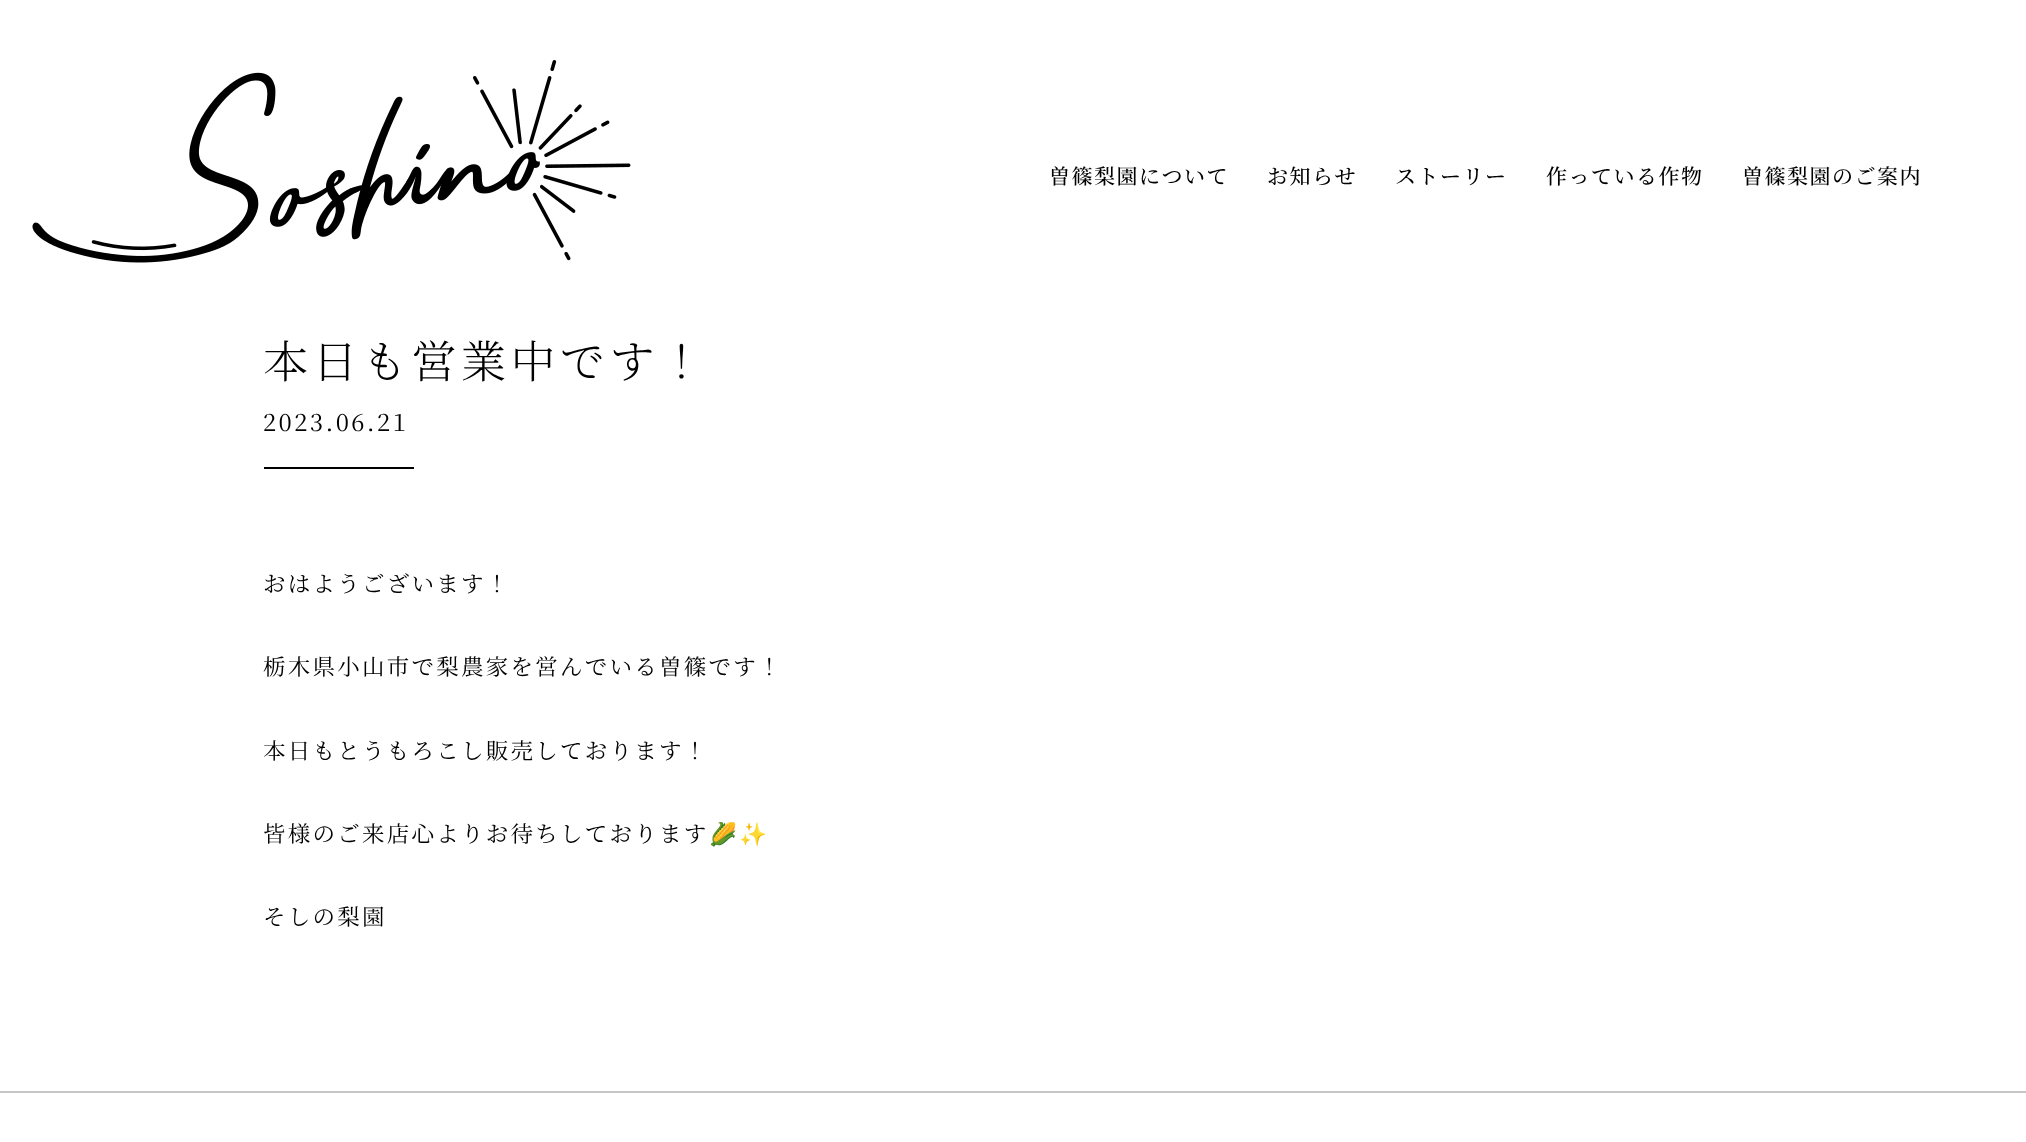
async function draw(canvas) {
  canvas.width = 2026;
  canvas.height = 1142;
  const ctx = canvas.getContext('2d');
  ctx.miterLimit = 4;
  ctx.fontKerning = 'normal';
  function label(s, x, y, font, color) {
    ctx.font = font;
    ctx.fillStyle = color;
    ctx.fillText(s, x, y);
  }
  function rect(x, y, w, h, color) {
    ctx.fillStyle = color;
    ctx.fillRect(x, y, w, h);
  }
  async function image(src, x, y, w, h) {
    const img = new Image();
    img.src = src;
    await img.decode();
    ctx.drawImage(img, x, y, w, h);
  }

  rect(0, 0, 2026, 1142, '#fff');
  await image('assets/img1.png', 32, 60, 599, 203);
  ctx.letterSpacing = '1.5px';
  label('曽篠梨園について', 1049, 184, '500 21px Noto Serif JP', '#000');
  label('お知らせ', 1267, 184, '500 21px Noto Serif JP', '#000');
  label('ストーリー', 1395, 184, '500 21px Noto Serif JP', '#000');
  label('作っている作物', 1546, 184, '500 21px Noto Serif JP', '#000');
  label('曽篠梨園のご案内', 1742, 184, '500 21px Noto Serif JP', '#000');
  ctx.letterSpacing = '4.5px';
  label('本日も営業中です！', 263, 378, '300 45px Noto Serif JP', '#000');
  ctx.letterSpacing = '2.4px';
  label('2023.06.21', 263, 431, '24px Noto Serif JP', '#000');
  rect(264, 467, 150, 2, '#000');
  ctx.letterSpacing = '2.25px';
  label('おはようございます！', 263, 592, '22.5px Noto Serif JP', '#000');
  label('栃木県小山市で梨農家を営んでいる曽篠です！', 263, 675, '22.5px Noto Serif JP', '#000');
  label('本日もとうもろこし販売しております！', 263, 759, '22.5px Noto Serif JP', '#000');
  label('皆様のご来店心よりお待ちしております', 263, 842, '22.5px Noto Serif JP', '#000');
  label('🌽✨', 709, 842, '22.5px Noto Color Emoji', '#000');
  label('そしの梨園', 263, 925, '22.5px Noto Serif JP', '#000');
  rect(0, 1091, 2026, 2, '#c7c7c7');
}

draw(document.querySelector('canvas'));
